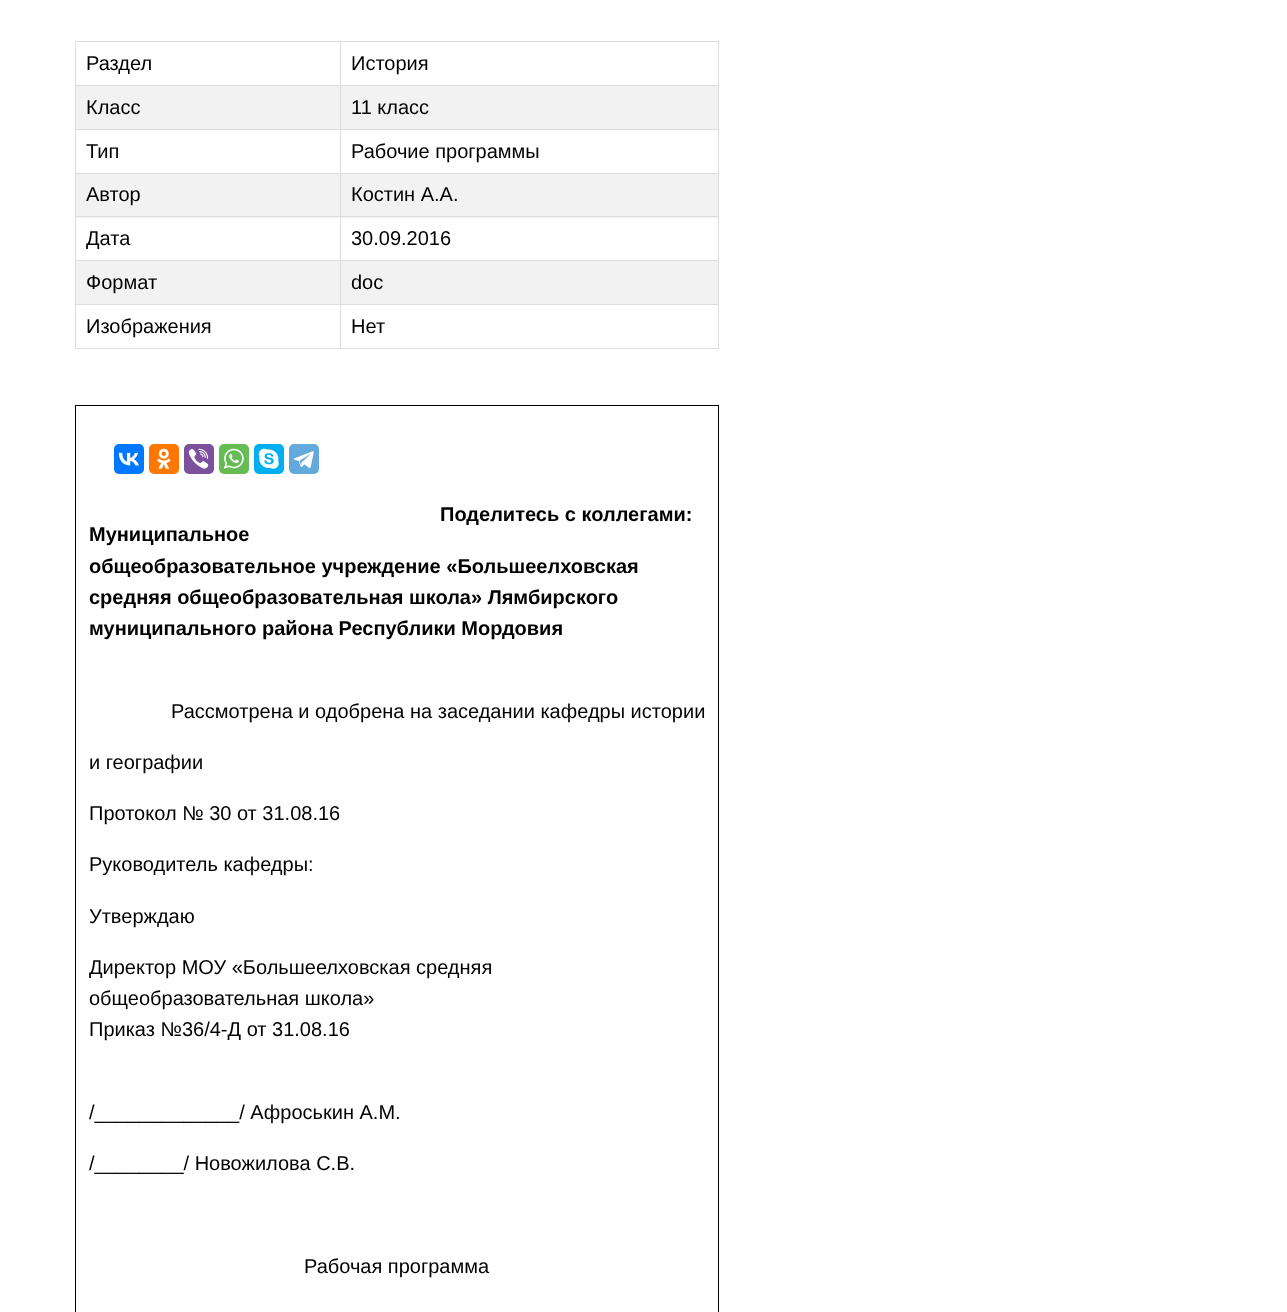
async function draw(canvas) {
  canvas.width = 1287;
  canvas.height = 1312;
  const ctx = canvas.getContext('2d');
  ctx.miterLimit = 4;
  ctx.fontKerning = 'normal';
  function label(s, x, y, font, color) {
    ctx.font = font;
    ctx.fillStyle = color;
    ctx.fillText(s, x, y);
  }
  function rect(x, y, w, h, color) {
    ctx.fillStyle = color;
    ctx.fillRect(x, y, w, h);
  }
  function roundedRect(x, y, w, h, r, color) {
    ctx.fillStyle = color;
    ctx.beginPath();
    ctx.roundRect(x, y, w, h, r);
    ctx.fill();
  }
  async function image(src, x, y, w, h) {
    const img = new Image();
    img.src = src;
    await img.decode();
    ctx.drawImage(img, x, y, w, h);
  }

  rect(0, 0, 1287, 1312, '#fff');
  rect(340, 41, 379, 1, '#ddd');
  rect(340, 85, 379, 1, '#ddd');
  rect(76, 86, 642, 43, '#f2f2f2');
  rect(340, 129, 379, 1, '#ddd');
  rect(340, 173, 379, 1, '#ddd');
  rect(76, 174, 642, 44, '#f2f2f2');
  rect(340, 216, 379, 1, '#ddd');
  rect(340, 260, 379, 1, '#ddd');
  rect(76, 261, 642, 43, '#f2f2f2');
  rect(340, 304, 379, 1, '#ddd');
  rect(718, 304, 1, 45, '#ddd');
  rect(340, 348, 379, 1, '#ddd');
  rect(340, 304, 1, 45, '#ddd');
  rect(75, 304, 266, 1, '#ddd');
  rect(340, 260, 1, 45, '#ddd');
  rect(75, 260, 266, 1, '#ddd');
  rect(340, 216, 1, 45, '#ddd');
  rect(75, 216, 266, 1, '#ddd');
  rect(340, 173, 1, 45, '#ddd');
  rect(75, 173, 266, 1, '#ddd');
  rect(340, 129, 1, 45, '#ddd');
  rect(75, 129, 266, 1, '#ddd');
  rect(340, 85, 1, 45, '#ddd');
  rect(75, 85, 266, 1, '#ddd');
  rect(340, 41, 1, 45, '#ddd');
  rect(75, 41, 266, 1, '#ddd');
  rect(75, 348, 266, 1, '#ddd');
  rect(75, 304, 1, 45, '#ddd');
  rect(75, 260, 1, 45, '#ddd');
  rect(75, 216, 1, 45, '#ddd');
  rect(75, 173, 1, 45, '#ddd');
  rect(75, 129, 1, 45, '#ddd');
  rect(75, 85, 1, 45, '#ddd');
  rect(75, 41, 1, 45, '#ddd');
  label('Раздел', 86, 70, '20px Liberation Sans', '#000');
  rect(718, 260, 1, 45, '#ddd');
  rect(718, 216, 1, 45, '#ddd');
  rect(718, 173, 1, 45, '#ddd');
  rect(718, 129, 1, 45, '#ddd');
  rect(718, 85, 1, 45, '#ddd');
  rect(718, 41, 1, 45, '#ddd');
  label('История', 351, 70, '20px Liberation Sans', '#000');
  label('Класс', 86, 114, '20px Liberation Sans', '#000');
  label('11 класс', 351, 114, '20px Liberation Sans', '#000');
  label('Тип', 86, 158, '20px Liberation Sans', '#000');
  label('Рабочие программы', 351, 158, '20px Liberation Sans', '#000');
  label('Автор', 86, 201, '20px Liberation Sans', '#000');
  label('Костин А.А.', 351, 201, '20px Liberation Sans', '#000');
  label('Дата', 86, 245, '20px Liberation Sans', '#000');
  label('30.09.2016', 351, 245, '20px Liberation Sans', '#000');
  label('Формат', 86, 289, '20px Liberation Sans', '#000');
  label('doc', 351, 289, '20px Liberation Sans', '#000');
  label('Изображения', 86, 333, '20px Liberation Sans', '#000');
  label('Нет', 351, 333, '20px Liberation Sans', '#000');
  ctx.strokeStyle = '#000';
  ctx.strokeRect(75.5, 405.5, 643, 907);
  roundedRect(114, 444, 30, 30, 5, '#07f');
  await image('assets/img1.png', 118, 452, 21, 14);
  roundedRect(149, 444, 30, 30, 5, '#f70');
  await image('assets/img2.png', 157, 448, 14, 21);
  roundedRect(184, 444, 30, 30, 5, '#7b519d');
  await image('assets/img3.png', 188, 448, 21, 21);
  roundedRect(219, 444, 30, 30, 5, '#65bc54');
  await image('assets/img4.png', 223, 448, 21, 21);
  roundedRect(254, 444, 30, 30, 5, '#00aff0');
  await image('assets/img5.png', 258, 448, 21, 21);
  roundedRect(289, 444, 30, 30, 5, '#64a9dc');
  await image('assets/img6.png', 293, 451, 21, 17);
  label('Поделитесь с коллегами:', 440, 521, 'bold 20px Liberation Sans', '#000');
  label('Муниципальное', 89, 541, 'bold 20px Liberation Sans', '#000');
  label('общеобразовательное учреждение «Большеелховская', 89, 573, 'bold 20px Liberation Sans', '#000');
  label('средняя общеобразовательная школа» Лямбирского', 89, 604, 'bold 20px Liberation Sans', '#000');
  label('муниципального района Республики Мордовия', 89, 635, 'bold 20px Liberation Sans', '#000');
  label('Рассмотрена и одобрена на заседании кафедры истории', 171, 718, '20px Liberation Sans', '#000');
  label('и географии', 89, 769, '20px Liberation Sans', '#000');
  label('Протокол № 30 от 31.08.16', 89, 820, '20px Liberation Sans', '#000');
  label('Руководитель кафедры:', 89, 871, '20px Liberation Sans', '#000');
  label('Утверждаю', 89, 923, '20px Liberation Sans', '#000');
  label('Директор МОУ «Большеелховская средняя', 89, 974, '20px Liberation Sans', '#000');
  label('общеобразовательная школа»', 89, 1005, '20px Liberation Sans', '#000');
  label('Приказ №36/4-Д от 31.08.16', 89, 1036, '20px Liberation Sans', '#000');
  label('/_____________/ Афроськин А.М.', 89, 1119, '20px Liberation Sans', '#000');
  label('/________/ Новожилова С.В.', 89, 1170, '20px Liberation Sans', '#000');
  label('Рабочая программа', 304, 1273, '20px Liberation Sans', '#000');
}

draw(document.querySelector('canvas'));
